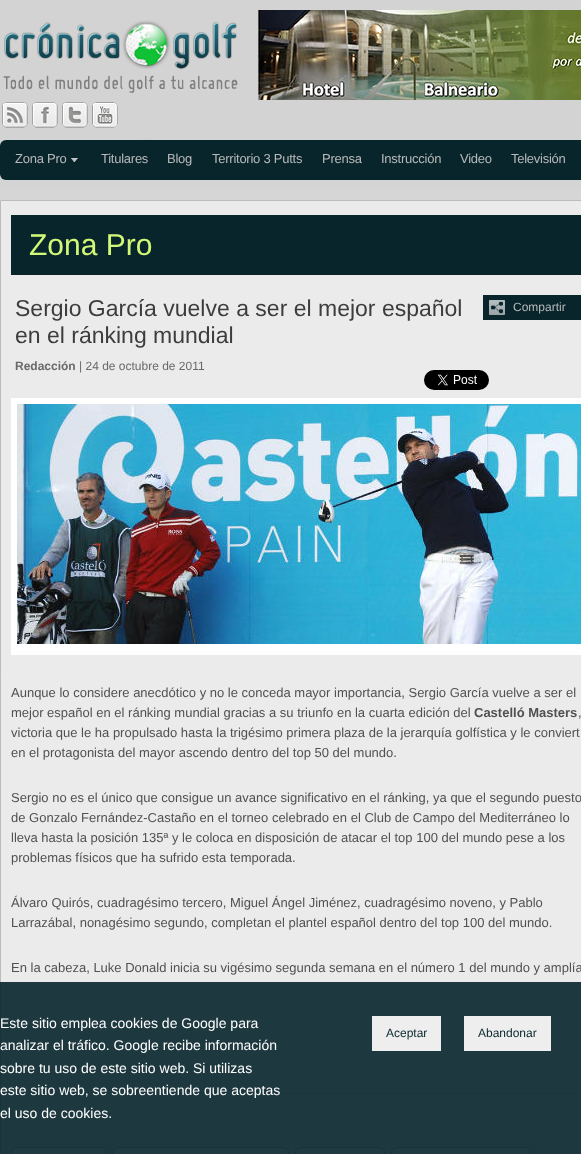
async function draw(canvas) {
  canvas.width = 581;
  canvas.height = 1154;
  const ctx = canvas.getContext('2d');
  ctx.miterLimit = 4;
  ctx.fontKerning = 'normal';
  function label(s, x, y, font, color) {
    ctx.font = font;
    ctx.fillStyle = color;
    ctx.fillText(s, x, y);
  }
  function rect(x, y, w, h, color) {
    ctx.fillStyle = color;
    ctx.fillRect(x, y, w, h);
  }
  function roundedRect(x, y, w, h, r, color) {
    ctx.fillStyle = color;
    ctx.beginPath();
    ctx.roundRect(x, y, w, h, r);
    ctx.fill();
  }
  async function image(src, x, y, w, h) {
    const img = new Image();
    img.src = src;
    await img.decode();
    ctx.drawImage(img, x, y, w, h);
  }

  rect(0, 0, 581, 1154, '#fff');
  await image('assets/img1.png', 0, 0, 581, 200);
  await image('assets/img2.png', 258, 10, 323, 90);
  await image('assets/img3.png', 3, 20, 235, 120);
  await image('assets/img4.png', 2, 102, 26, 26);
  await image('assets/img5.png', 32, 102, 26, 26);
  await image('assets/img6.png', 62, 102, 26, 26);
  await image('assets/img7.png', 92, 102, 26, 26);
  roundedRect(0, 140, 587, 40, 6, '#08252c');
  await image('assets/img8.png', 71, 158, 8, 5);
  ctx.letterSpacing = '-0.25px';
  label('Zona Pro', 15, 163, '13px Liberation Sans', '#b9b9b9');
  label('Titulares', 101, 163, '13px Liberation Sans', '#b9b9b9');
  label('Blog', 167, 163, '13px Liberation Sans', '#b9b9b9');
  label('Territorio 3 Putts', 212, 163, '13px Liberation Sans', '#b9b9b9');
  label('Prensa', 322, 163, '13px Liberation Sans', '#b9b9b9');
  label('Instrucción', 381, 163, '13px Liberation Sans', '#b9b9b9');
  label('Video', 460, 163, '13px Liberation Sans', '#b9b9b9');
  label('Televisión', 511, 163, '13px Liberation Sans', '#b9b9b9');
  ctx.fillStyle = '#ebebeb';
  ctx.beginPath();
  ctx.rect(0.5, 200.5, 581, 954);
  ctx.fill();
  ctx.strokeStyle = '#bbb';
  ctx.stroke();
  rect(11, 215, 570, 60, '#08252c');
  ctx.letterSpacing = '0px';
  label('Zona Pro', 29, 255, '30px Liberation Sans', '#d2f877');
  label('Sergio García vuelve a ser el mejor español', 15, 316, '23px Liberation Sans', '#3d3d3d');
  label('en el ránking mundial', 15, 343, '23px Liberation Sans', '#3d3d3d');
  label('Redacción', 15, 370, 'bold 12px Liberation Sans', '#696969');
  label('| 24 de octubre de 2011', 79, 370, '12px Liberation Sans', '#696969');
  await image('assets/img9.png', 424, 370, 65, 20);
  rect(11, 398, 570, 257, '#fff');
  await image('assets/img10.png', 17, 404, 564, 240);
  label('Aunque lo considere anecdótico y no le conceda mayor importancia, Sergio García vuelve a ser el', 11, 697, '13px Liberation Sans', '#515151');
  label('mejor español en el ránking mundial gracias a su triunfo en la cuarta edición del', 11, 717, '13px Liberation Sans', '#515151');
  label('Castelló Masters', 474, 717, 'bold 13px Liberation Sans', '#515151');
  label(',', 578, 717, '13px Liberation Sans', '#515151');
  label('victoria que le ha propulsado hasta la trigésimo primera plaza de la jerarquía golfística y le conviert', 11, 737, '13px Liberation Sans', '#515151');
  label('en el protagonista del mayor ascendo dentro del top 50 del mundo.', 11, 757, '13px Liberation Sans', '#515151');
  label('Sergio no es el único que consigue un avance significativo en el ránking, ya que el segundo puesto', 11, 802, '13px Liberation Sans', '#515151');
  label('de Gonzalo Fernández-Castaño en el torneo celebrado en el Club de Campo del Mediterráneo lo', 11, 822, '13px Liberation Sans', '#515151');
  label('lleva hasta la posición 135ª y le coloca en disposición de atacar el top 100 del mundo pese a los', 11, 842, '13px Liberation Sans', '#515151');
  label('problemas físicos que ha sufrido esta temporada.', 11, 862, '13px Liberation Sans', '#515151');
  label('Álvaro Quirós, cuadragésimo tercero, Miguel Ángel Jiménez, cuadragésimo noveno, y Pablo', 11, 907, '13px Liberation Sans', '#515151');
  label('Larrazábal, nonagésimo segundo, completan el plantel español dentro del top 100 del mundo.', 11, 927, '13px Liberation Sans', '#515151');
  label('En la cabeza, Luke Donald inicia su vigésimo segunda semana en el número 1 del mundo y amplía', 11, 972, '13px Liberation Sans', '#515151');
  rect(11, 1093, 570, 1, '#ccc');
  ctx.fillStyle = '#fff';
  ctx.beginPath();
  ctx.roundRect(11.5, 1147.5, 95, 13, 5.5);
  ctx.fill();
  ctx.strokeStyle = '#aaa';
  ctx.stroke();
  ctx.beginPath();
  ctx.roundRect(112.5, 1147.5, 176, 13, 5.5);
  ctx.fill();
  ctx.stroke();
  ctx.beginPath();
  ctx.roundRect(295.5, 1147.5, 89, 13, 5.5);
  ctx.fill();
  ctx.stroke();
  ctx.beginPath();
  ctx.roundRect(391.5, 1147.5, 139, 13, 5.5);
  ctx.fill();
  ctx.stroke();
  rect(483, 295, 98, 25, '#08252c');
  await image('assets/img11.png', 489, 300, 16, 15);
  label('Compartir', 513, 311, '12px Liberation Sans', '#b9b9b9');
  rect(0, 982, 581, 172, '#08252ce6');
  label('Este sitio emplea cookies de Google para', 0, 1028, '14px Liberation Sans', '#fff');
  label('analizar el tráfico. Google recibe información', 0, 1050, '14px Liberation Sans', '#fff');
  label('sobre tu uso de este sitio web. Si utilizas', 0, 1073, '14px Liberation Sans', '#fff');
  label('este sitio web, se sobreentiende que aceptas', 0, 1095, '14px Liberation Sans', '#fff');
  label('el uso de cookies.', 0, 1118, '14px Liberation Sans', '#fff');
  rect(372, 1016, 69, 35, '#eee');
  label('Aceptar', 386, 1037, '12px Liberation Sans', '#08252c');
  rect(464, 1016, 87, 35, '#eee');
  label('Abandonar', 478, 1037, '12px Liberation Sans', '#08252c');
}

draw(document.querySelector('canvas'));
